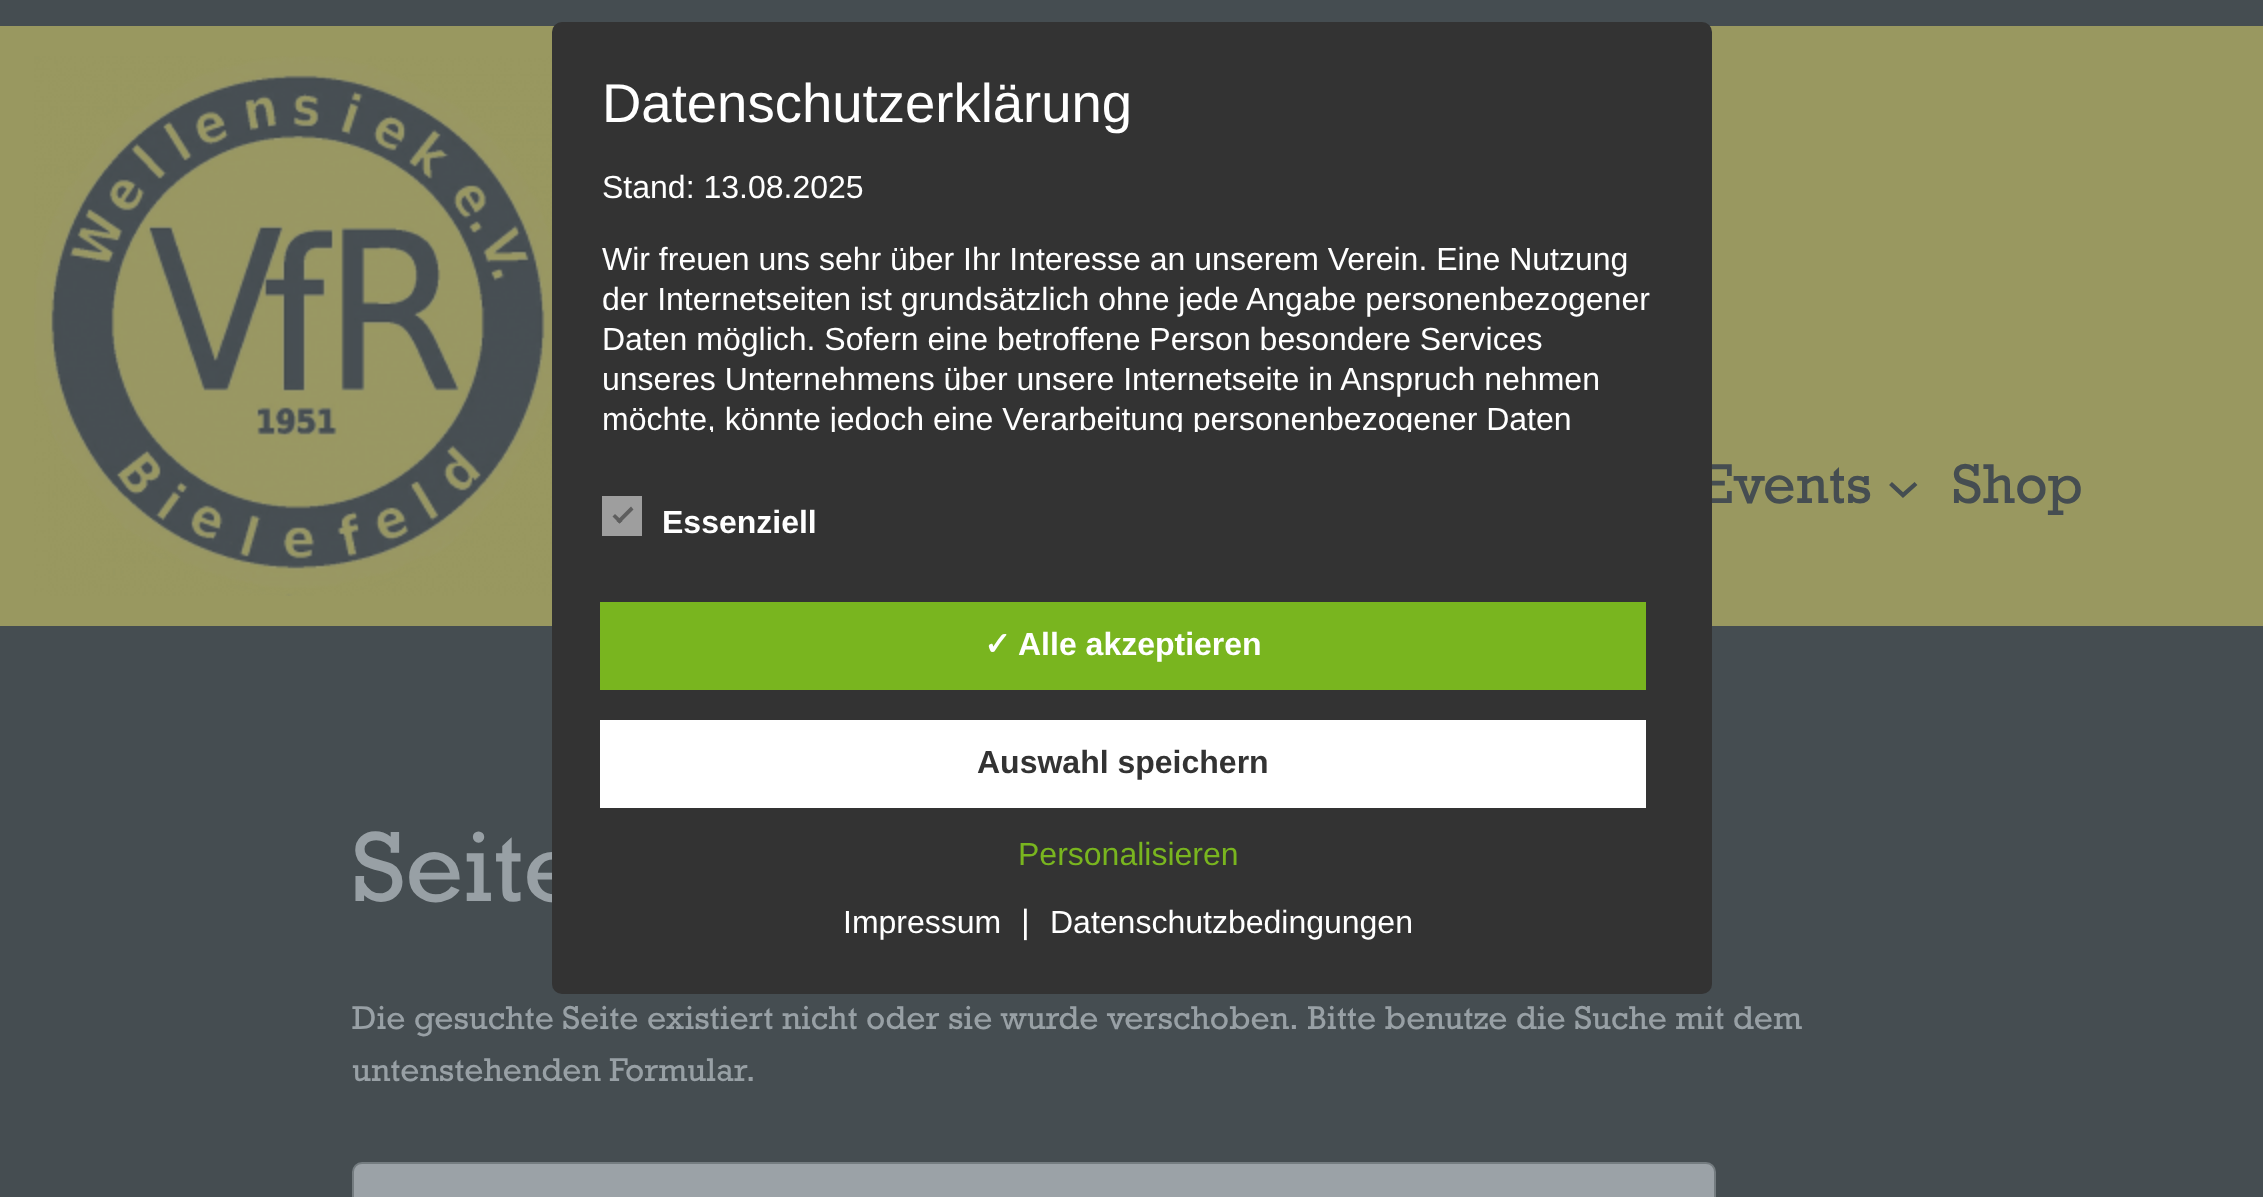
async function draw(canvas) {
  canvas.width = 2263;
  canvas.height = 1197;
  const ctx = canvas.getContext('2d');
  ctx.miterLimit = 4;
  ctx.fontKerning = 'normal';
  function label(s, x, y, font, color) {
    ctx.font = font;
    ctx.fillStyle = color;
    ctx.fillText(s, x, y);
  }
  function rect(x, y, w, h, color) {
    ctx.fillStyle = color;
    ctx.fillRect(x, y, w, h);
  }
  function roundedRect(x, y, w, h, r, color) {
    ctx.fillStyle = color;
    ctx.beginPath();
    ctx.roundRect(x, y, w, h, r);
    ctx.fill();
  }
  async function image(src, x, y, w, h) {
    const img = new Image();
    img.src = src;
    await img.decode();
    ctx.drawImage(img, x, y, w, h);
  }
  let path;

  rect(0, 0, 2263, 1197, '#454d51');
  rect(0, 26, 2263, 600, '#999860');
  label('Events', 1698, 503, '57px Rockwell', '#454d51');
  label('Seite', 352, 901, '101px Rockwell', '#98a0a5');
  roundedRect(552, 22, 1160, 972, 10, '#333');
  label('Datenschutzerklärung', 602, 122, '54.5px Liberation Sans', '#fff');
  label('Stand: 13.08.2025', 602, 198, '32px Liberation Sans', '#fff');
  label('Wir freuen uns sehr über Ihr Interesse an unserem Verein. Eine Nutzung', 602, 270, '32px Liberation Sans', '#fff');
  label('der Internetseiten ist grundsätzlich ohne jede Angabe personenbezogener', 602, 310, '32px Liberation Sans', '#fff');
  label('Daten möglich. Sofern eine betroffene Person besondere Services', 602, 350, '32px Liberation Sans', '#fff');
  label('unseres Unternehmens über unsere Internetseite in Anspruch nehmen', 602, 390, '32px Liberation Sans', '#fff');
  ctx.save();
  ctx.beginPath();
  ctx.rect(602, 72, 1080, 360);
  ctx.clip();
  label('möchte, könnte jedoch eine Verarbeitung personenbezogener Daten', 602, 430, '32px Liberation Sans', '#fff');
  ctx.restore();
  rect(602, 496, 40, 40, '#9e9e9e');
  ctx.fillStyle = '#5e5e5e';
  path = new Path2D('M631 506.5L633.5 509.5L619.5 523.5L616.5 521Z');
  ctx.fill(path);
  path = new Path2D('M615 514L622.5 521L619.5 523.5L612.5 516.5Z');
  ctx.fill(path);
  label('Essenziell', 662, 533, 'bold 32px Liberation Sans', '#fff');
  rect(600, 602, 1046, 88, '#79b51f');
  label('✓', 984, 655, 'bold 32px DejaVu Sans', '#fff');
  label('Alle akzeptieren', 1018, 655, 'bold 32px Liberation Sans', '#fff');
  rect(600, 720, 1046, 88, '#fff');
  label('Auswahl speichern', 977, 773, 'bold 32px Liberation Sans', '#333');
  label('Personalisieren', 1018, 865, '32px Liberation Sans', '#79b51f');
  label('Impressum', 843, 933, '32px Liberation Sans', '#fff');
  label('|', 1021, 933, '33.6px Liberation Sans', '#fff');
  label('Datenschutzbedingungen', 1050, 933, '32px Liberation Sans', '#fff');
  await image('assets/img1.png', 34, 56, 518, 540);
  path = new Path2D('M1890.5 483.5L1903 495L1916 483.5');
  ctx.strokeStyle = '#454d51';
  ctx.lineWidth = 4.3;
  ctx.stroke(path);
  label('Shop', 1952, 503, '57px Rockwell', '#454d51');
  label('Die gesuchte Seite existiert nicht oder sie wurde verschoben. Bitte benutze die Suche mit dem', 352, 1029, '33.6px Rockwell', '#98a0a5');
  label('untenstehenden Formular.', 352, 1081, '33.6px Rockwell', '#98a0a5');
  ctx.fillStyle = '#9ba2a7';
  ctx.beginPath();
  ctx.roundRect(353, 1163, 1362, 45, 9);
  ctx.fill();
  ctx.strokeStyle = '#747c80';
  ctx.lineWidth = 2;
  ctx.stroke();
}

draw(document.querySelector('canvas'));
